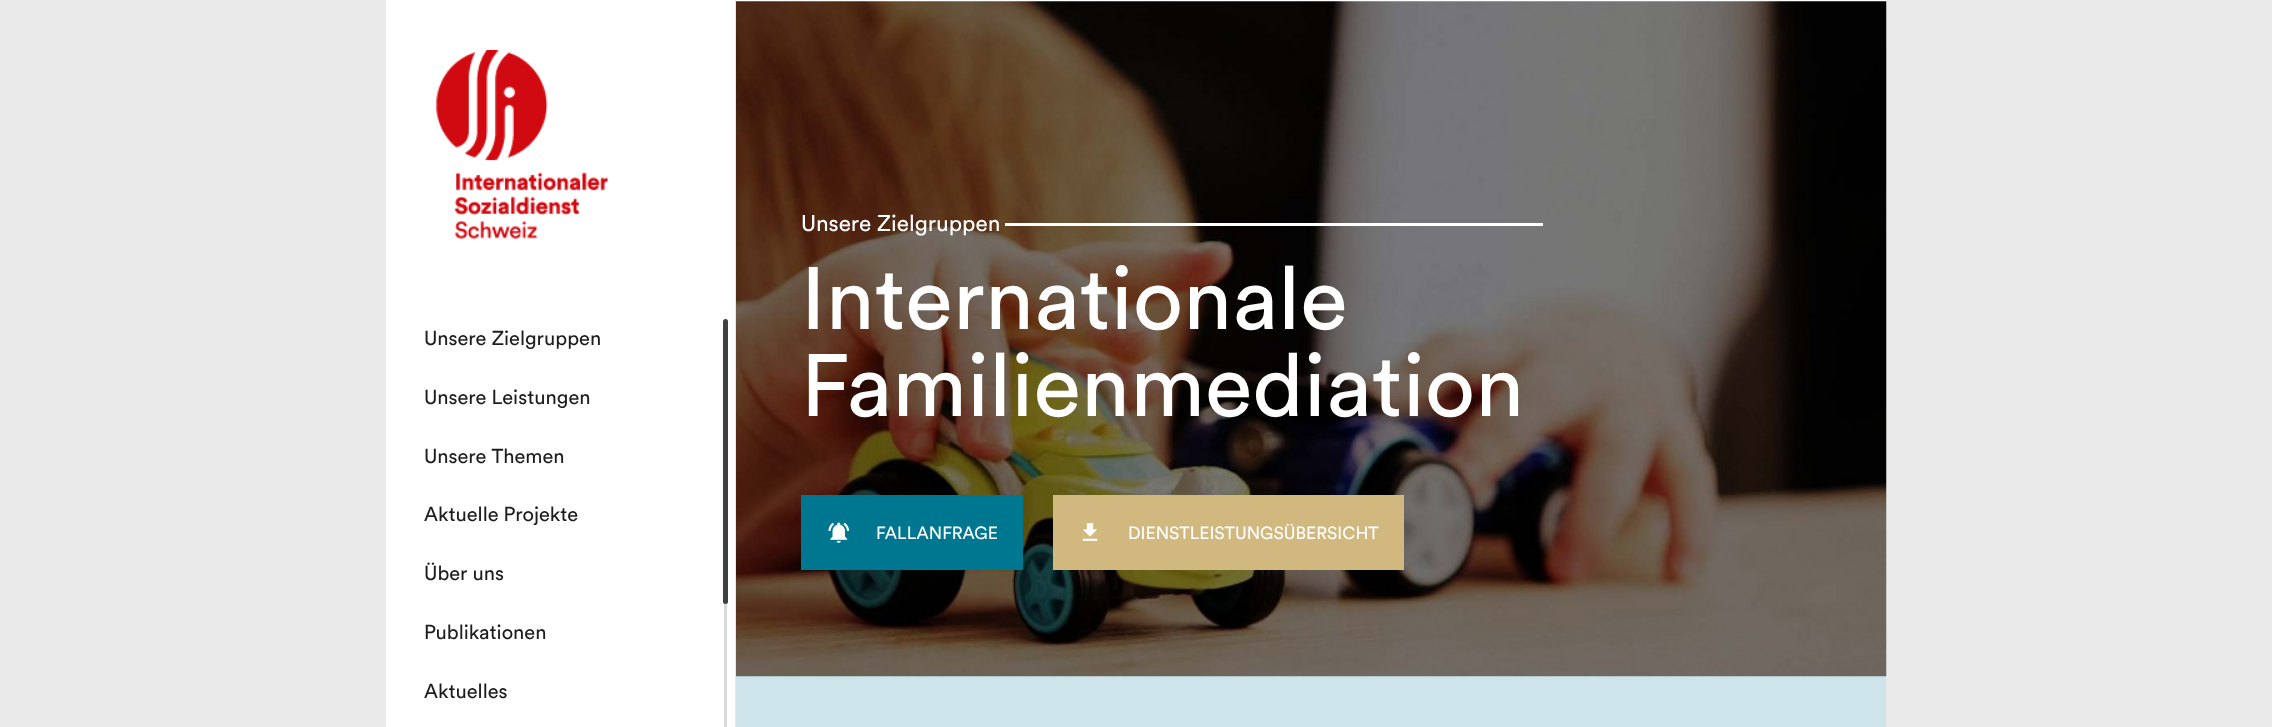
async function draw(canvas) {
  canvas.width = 2272;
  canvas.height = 727;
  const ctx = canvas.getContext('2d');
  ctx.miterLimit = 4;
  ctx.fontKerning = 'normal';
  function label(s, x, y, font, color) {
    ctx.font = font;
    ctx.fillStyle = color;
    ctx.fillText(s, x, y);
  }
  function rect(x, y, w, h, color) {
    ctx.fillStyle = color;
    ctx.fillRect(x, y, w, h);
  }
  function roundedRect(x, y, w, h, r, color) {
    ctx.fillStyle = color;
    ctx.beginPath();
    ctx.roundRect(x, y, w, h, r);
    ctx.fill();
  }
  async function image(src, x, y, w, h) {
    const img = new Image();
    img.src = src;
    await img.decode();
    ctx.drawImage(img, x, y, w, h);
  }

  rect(0, 0, 2272, 727, '#eaeaea');
  rect(736, 0, 1150, 2, '#fff');
  rect(386, 0, 349, 727, '#fff');
  rect(735, 0, 1, 727, '#e5e5e5');
  await image('assets/img1.png', 436, 50, 172, 189);
  label('Unsere Zielgruppen', 424, 345, '20px Circular', '#1d1d1d');
  label('Unsere Leistungen', 424, 404, '20px Circular', '#1d1d1d');
  label('Unsere Themen', 424, 463, '20px Circular', '#1d1d1d');
  label('Aktuelle Projekte', 424, 521, '20px Circular', '#1d1d1d');
  label('Über uns', 424, 580, '20px Circular', '#1d1d1d');
  label('Publikationen', 424, 639, '20px Circular', '#1d1d1d');
  label('Aktuelles', 424, 698, '20px Circular', '#1d1d1d');
  roundedRect(724, 319, 3, 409, 1.5, '#d9d9d9');
  roundedRect(723, 319, 5, 285, 2.5, '#404040');
  rect(736, 676, 1150, 51, '#cde4eb');
  await image('assets/img2.png', 736, 1, 1151, 676);
  label('Unsere Zielgruppen', 801, 231, '22.5px Circular', '#fff');
  rect(1005, 223, 538, 3, '#fff');
  label('Internationale', 801, 329, '87.5px Circular', '#fff');
  label('Familienmediation', 801, 416, '87.5px Circular', '#fff');
  rect(801, 495, 222, 75, '#007790');
  await image('assets/img3.png', 828, 522, 22, 21);
  label('FALLANFRAGE', 876, 539, '17.5px Circular', '#fff');
  rect(1053, 495, 351, 75, '#d0b87f');
  await image('assets/img4.png', 1082, 523, 16, 18);
  label('DIENSTLEISTUNGSÜBERSICHT', 1128, 539, '17.5px Circular', '#fff');
}

draw(document.querySelector('canvas'));
